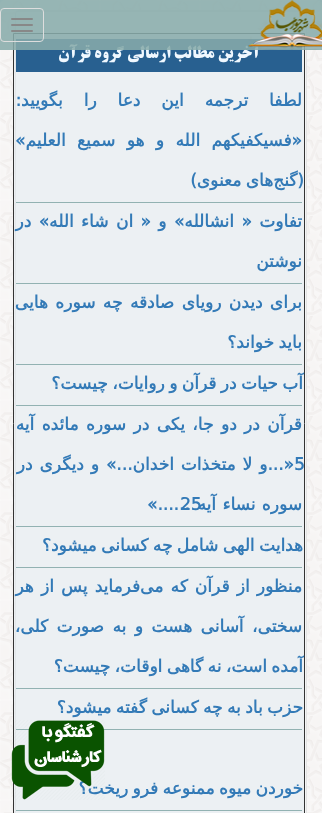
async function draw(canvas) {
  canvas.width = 322;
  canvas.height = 813;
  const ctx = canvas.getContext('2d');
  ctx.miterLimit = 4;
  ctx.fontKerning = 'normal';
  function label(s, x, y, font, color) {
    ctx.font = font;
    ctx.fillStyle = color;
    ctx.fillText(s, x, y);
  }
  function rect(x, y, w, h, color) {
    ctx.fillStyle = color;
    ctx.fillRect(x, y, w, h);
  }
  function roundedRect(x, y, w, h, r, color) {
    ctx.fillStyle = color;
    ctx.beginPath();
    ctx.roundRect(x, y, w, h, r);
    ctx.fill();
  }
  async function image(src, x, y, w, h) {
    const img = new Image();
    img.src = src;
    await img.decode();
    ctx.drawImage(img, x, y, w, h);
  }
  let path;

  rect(0, 0, 322, 813, '#fff');
  await image('assets/img1.png', 0, 0, 322, 5);
  await image('assets/img3.png', 0, 0, 322, 813);
  roundedRect(15, 10, 292, 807, 4, '#f5f5f5');
  ctx.fillStyle = '#e9e9e9';
  path = new Path2D('M19 12H303C305 12 306 13 306 15C306 13 305 11 303 11H19C17 11 16 13 16 15C16 13 17 12 19 12Z');
  ctx.fill(path);
  ctx.beginPath();
  ctx.roundRect(15.5, 10.5, 291, 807, 3.5);
  ctx.strokeStyle = '#e3e3e3';
  ctx.stroke();
  ctx.fillStyle = '#e2e9f178';
  ctx.beginPath();
  ctx.rect(13.5, 33.5, 291, 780);
  ctx.fill();
  ctx.strokeStyle = '#333';
  ctx.stroke();
  rect(16, 39, 286, 33, '#286090');
  ctx.direction = 'rtl';
  label('آخرین مطالب ارسالی گروه قرآن', 260, 58, 'bold 17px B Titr', '#f0f8ff');
  rect(0, 0, 322, 50, '#87abaade');
  await image('assets/img2.png', 248, 0, 74, 50);
  ctx.beginPath();
  ctx.roundRect(0.5, 8.5, 43, 33, 3.5);
  ctx.strokeStyle = '#ddd';
  ctx.stroke();
  roundedRect(11, 18, 22, 2, 1, '#888');
  roundedRect(11, 24, 22, 2, 1, '#888');
  roundedRect(11, 30, 22, 2, 1, '#888');
  rect(16, 202, 286, 1, '#92b2b2');
  ctx.wordSpacing = '15.5px';
  label('لطفا ترجمه این دعا را بگویید:', 302, 106, 'bold 17px DejaVu Sans', '#337ab7');
  ctx.wordSpacing = '6px';
  label('«فسیکفیکهم الله و هو سمیع العلیم»', 302, 146, 'bold 17px DejaVu Sans', '#337ab7');
  ctx.wordSpacing = '-1px';
  label('(گنج‌های معنوی)', 304, 186, 'bold 17px DejaVu Sans', '#337ab7');
  rect(16, 283, 286, 1, '#92b2b2');
  ctx.wordSpacing = '2px';
  label('تفاوت « انشالله» و « ان شاء الله» در', 302, 227, 'bold 17px DejaVu Sans', '#337ab7');
  ctx.wordSpacing = '0px';
  label('نوشتن', 302, 267, 'bold 17px DejaVu Sans', '#337ab7');
  rect(16, 364, 286, 1, '#92b2b2');
  ctx.wordSpacing = '2px';
  label('برای دیدن رویای صادقه چه سوره هایی', 302, 308, 'bold 17px DejaVu Sans', '#337ab7');
  ctx.wordSpacing = '-1px';
  label('باید خواند؟', 302, 348, 'bold 17px DejaVu Sans', '#337ab7');
  rect(16, 405, 286, 1, '#92b2b2');
  label('آب حیات در قرآن و روایات، چیست؟', 303, 389, 'bold 17px DejaVu Sans', '#337ab7');
  rect(16, 526, 286, 1, '#92b2b2');
  ctx.wordSpacing = '2px';
  label('قرآن در دو جا، یکی در سوره مائده آیه', 302, 430, 'bold 17px DejaVu Sans', '#337ab7');
  ctx.wordSpacing = '0px';
  ctx.direction = 'ltr';
  label('5', 294, 470, 'bold 17px DejaVu Sans', '#337ab7');
  ctx.wordSpacing = '1.5px';
  ctx.direction = 'rtl';
  label('«...و لا متخذات اخدان...» و دیگری در', 294, 470, 'bold 17px DejaVu Sans', '#337ab7');
  ctx.wordSpacing = '0px';
  ctx.direction = 'ltr';
  label('«......', 147, 510, 'bold 17px DejaVu Sans', '#337ab7');
  label('25', 180, 510, 'bold 17px DejaVu Sans', '#337ab7');
  ctx.wordSpacing = '1px';
  ctx.direction = 'rtl';
  label('سوره نساء آیه', 302, 510, 'bold 17px DejaVu Sans', '#337ab7');
  rect(16, 567, 286, 1, '#92b2b2');
  ctx.wordSpacing = '-1px';
  label('هدایت الهی شامل چه کسانی میشود؟', 303, 551, 'bold 17px DejaVu Sans', '#337ab7');
  rect(16, 688, 286, 1, '#92b2b2');
  ctx.wordSpacing = '1.75px';
  label('منظور از قرآن که می‌فرماید پس از هر', 302, 592, 'bold 17px DejaVu Sans', '#337ab7');
  ctx.wordSpacing = '3px';
  label('سختی، آسانی هست و به صورت كلی،', 302, 632, 'bold 17px DejaVu Sans', '#337ab7');
  ctx.wordSpacing = '-1px';
  label('آمده است، نه گاهی اوقات، چیست؟', 303, 672, 'bold 17px DejaVu Sans', '#337ab7');
  rect(16, 729, 286, 1, '#92b2b2');
  label('حزب باد به چه کسانی گفته میشود؟', 303, 713, 'bold 17px DejaVu Sans', '#337ab7');
  rect(16, 810, 286, 1, '#92b2b2');
  label('خوردن میوه ممنوعه فرو ریخت؟', 303, 794, 'bold 17px DejaVu Sans', '#337ab7');
  await image('assets/img4.png', 11, 720, 94, 80);
}

draw(document.querySelector('canvas'));
